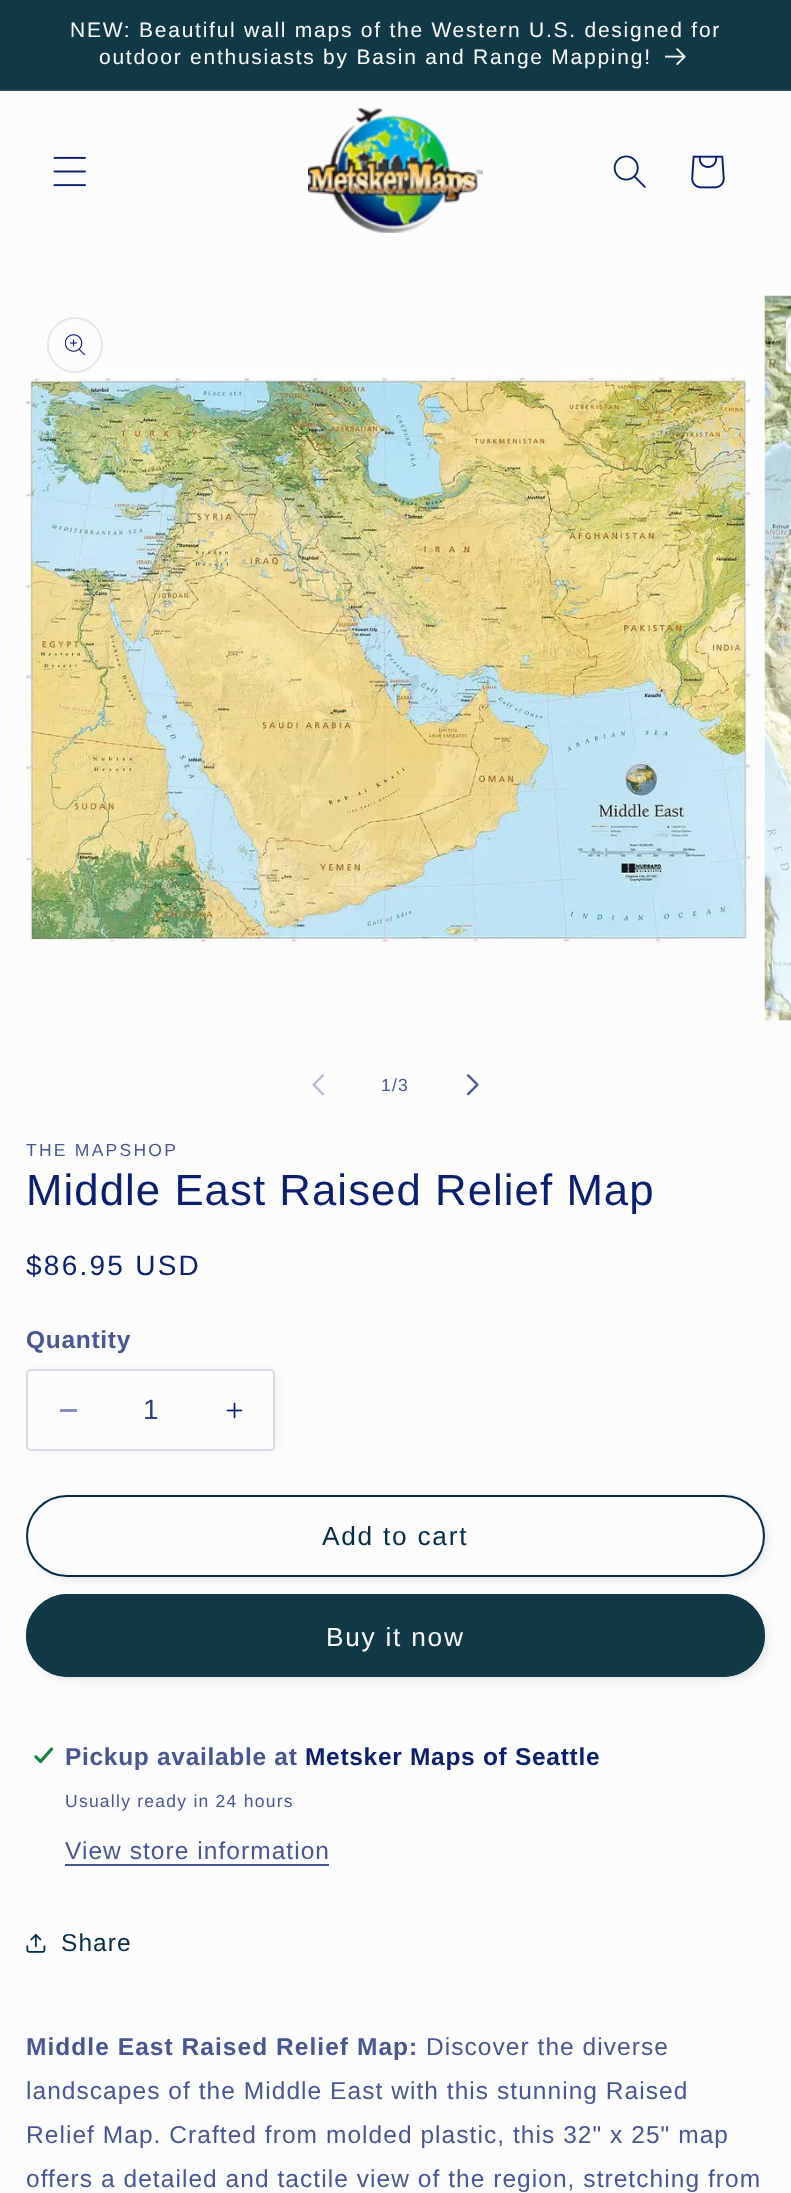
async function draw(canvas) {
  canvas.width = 791;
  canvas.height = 2193;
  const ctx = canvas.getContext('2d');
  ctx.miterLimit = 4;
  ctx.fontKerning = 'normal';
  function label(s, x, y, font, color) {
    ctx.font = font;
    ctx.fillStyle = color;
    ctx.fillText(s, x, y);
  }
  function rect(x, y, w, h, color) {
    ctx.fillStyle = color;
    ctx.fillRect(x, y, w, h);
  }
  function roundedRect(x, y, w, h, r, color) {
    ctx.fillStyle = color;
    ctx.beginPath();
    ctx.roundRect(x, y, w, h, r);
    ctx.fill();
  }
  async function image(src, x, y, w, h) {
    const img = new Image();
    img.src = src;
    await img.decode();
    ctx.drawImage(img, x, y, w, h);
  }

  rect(0, 0, 791, 2193, '#fcfcfc');
  rect(0, 0, 791, 89, '#103948');
  rect(0, 89, 791, 2, '#234956');
  ctx.letterSpacing = '1.75px';
  label('NEW: Beautiful wall maps of the Western U.S. designed for', 70, 37, '21px Arimo', '#fcfcfc');
  label('outdoor enthusiasts by Basin and Range Mapping!', 99, 64, '21px Arimo', '#fcfcfc');
  await image('assets/img1.png', 665, 48, 21, 17);
  await image('assets/img2.png', 53, 156, 33, 31);
  await image('assets/img3.png', 308, 108, 175, 125);
  await image('assets/img4.png', 613, 155, 33, 33);
  await image('assets/img5.png', 691, 155, 34, 34);
  ctx.beginPath();
  ctx.arc(75, 345, 27, 0, 2 * Math.PI);
  ctx.strokeStyle = '#e4e6ee';
  ctx.lineWidth = 2;
  ctx.stroke();
  await image('assets/img6.png', 65, 334, 20, 22);
  await image('assets/img7.png', 26, 373, 725, 570);
  await image('assets/img8.png', 764, 295, 27, 726);
  ctx.beginPath();
  ctx.roundRect(786, 317, 5, 56, [28, 0, 0, 28]);
  ctx.fill();
  ctx.beginPath();
  ctx.roundRect(787, 318, 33, 54, 27);
  ctx.strokeStyle = '#0c1f6f1a';
  ctx.stroke();
  await image('assets/img9.png', 312, 1074, 12, 22);
  ctx.letterSpacing = '1.25px';
  label('1/3', 381, 1091, '17.5px Arimo', '#485692');
  await image('assets/img10.png', 467, 1074, 12, 22);
  ctx.letterSpacing = '2.25px';
  label('THE MAPSHOP', 26, 1156, '17.5px Arimo', '#485692');
  ctx.letterSpacing = '1.05px';
  label('Middle East Raised Relief Map', 26, 1205, '43.75px Arimo', '#0c1f6f');
  ctx.letterSpacing = '2.25px';
  label('$86.95 USD', 26, 1275, '28px Arimo', '#0c1f6f');
  ctx.letterSpacing = '0.7px';
  label('Quantity', 26, 1348, 'bold 24.5px Arimo', '#485692');
  ctx.fillStyle = '#1039480d';
  ctx.filter = 'blur(4.5px)';
  ctx.beginPath();
  ctx.roundRect(30, 1369, 248, 82, 5);
  ctx.fill();
  ctx.filter = 'none';
  roundedRect(26, 1369, 249, 82, 5, '#fcfcfc');
  rect(60, 1409, 17, 3, '#848eb6');
  await image('assets/img11.png', 226, 1402, 17, 17);
  ctx.beginPath();
  ctx.roundRect(27, 1370, 247, 80, 4);
  ctx.strokeStyle = '#0c1f6f26';
  ctx.stroke();
  ctx.letterSpacing = '0px';
  label('1', 143, 1419, '28px Arimo', '#304084');
  ctx.fillStyle = '#1039481a';
  ctx.filter = 'blur(4.5px)';
  ctx.beginPath();
  ctx.roundRect(30, 1498, 738, 82, 41);
  ctx.fill();
  ctx.filter = 'none';
  roundedRect(26, 1495, 739, 82, 41, '#fcfcfc');
  ctx.beginPath();
  ctx.roundRect(27, 1496, 737, 80, 40);
  ctx.strokeStyle = '#fcfcfc';
  ctx.stroke();
  ctx.beginPath();
  ctx.roundRect(27, 1496, 737, 80, 40);
  ctx.strokeStyle = '#052c46';
  ctx.stroke();
  ctx.letterSpacing = '1.75px';
  label('Add to cart', 322, 1545, '26.25px Arimo', '#052c46');
  ctx.fillStyle = '#1039481a';
  ctx.filter = 'blur(4.5px)';
  ctx.beginPath();
  ctx.roundRect(30, 1598, 738, 82, 41);
  ctx.fill();
  ctx.filter = 'none';
  roundedRect(26, 1594, 739, 83, 41.5, '#103948');
  ctx.beginPath();
  ctx.roundRect(27, 1595, 737, 81, 40.5);
  ctx.strokeStyle = '#103948';
  ctx.stroke();
  label('Buy it now', 326, 1646, '26.25px Arimo', '#fcfcfc');
  await image('assets/img12.png', 34, 1747, 20, 17);
  ctx.letterSpacing = '0.7px';
  label('Pickup available at', 65, 1765, 'bold 24.5px Arimo', '#485692');
  label('Metsker Maps of Seattle', 305, 1765, 'bold 24.5px Arimo', '#0c1f6f');
  ctx.letterSpacing = '1.25px';
  label('Usually ready in 24 hours', 65, 1807, '17.5px Arimo', '#485692');
  ctx.letterSpacing = '1.05px';
  label('View store information', 65, 1859, '24.5px Arimo', '#485692');
  rect(65, 1864, 264, 2, '#485692');
  await image('assets/img13.png', 26, 1934, 20, 19);
  label('Share', 61, 1951, '24.5px Arimo', '#052c46');
  label('Middle East Raised Relief Map:', 26, 2055, 'bold 24.5px Arimo', '#485692');
  label('Discover the diverse', 426, 2055, '24.5px Arimo', '#485692');
  label('landscapes of the Middle East with this stunning Raised', 26, 2099, '24.5px Arimo', '#485692');
  label('Relief Map. Crafted from molded plastic, this 32" x 25" map', 26, 2143, '24.5px Arimo', '#485692');
  label('offers a detailed and tactile view of the region, stretching from', 26, 2187, '24.5px Arimo', '#485692');
}

draw(document.querySelector('canvas'));
